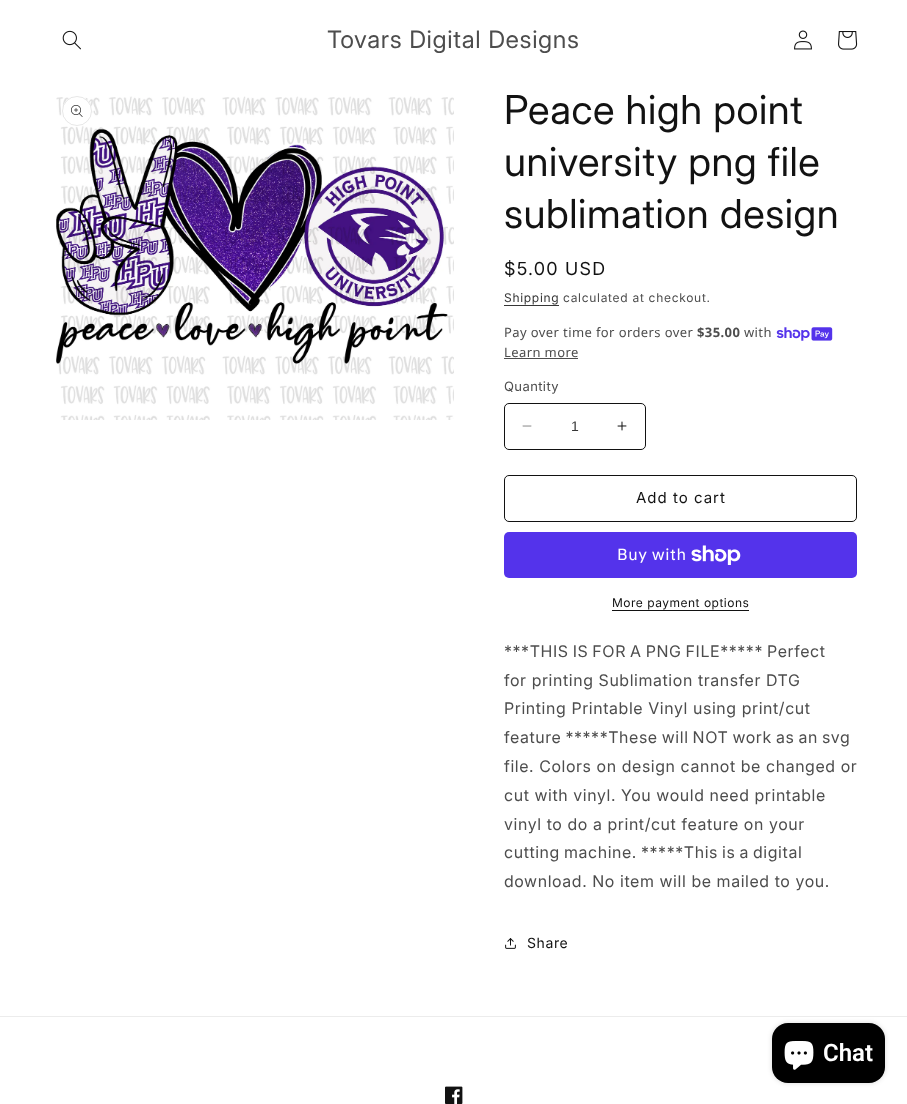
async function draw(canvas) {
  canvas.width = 907;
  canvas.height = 1104;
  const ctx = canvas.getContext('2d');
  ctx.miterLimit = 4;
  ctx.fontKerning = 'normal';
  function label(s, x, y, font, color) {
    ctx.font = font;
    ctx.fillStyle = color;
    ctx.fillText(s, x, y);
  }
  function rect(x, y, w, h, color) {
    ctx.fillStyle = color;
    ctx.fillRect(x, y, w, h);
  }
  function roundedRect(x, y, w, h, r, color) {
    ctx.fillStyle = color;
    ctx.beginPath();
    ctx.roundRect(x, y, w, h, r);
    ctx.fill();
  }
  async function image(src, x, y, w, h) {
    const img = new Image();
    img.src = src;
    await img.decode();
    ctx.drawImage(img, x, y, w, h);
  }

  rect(0, 0, 907, 1104, '#fff');
  await image('assets/img1.png', 62, 30, 19, 20);
  ctx.letterSpacing = '0.6px';
  label('Tovars Digital Designs', 327, 48, '24px "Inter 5"', '#4d4d4d');
  await image('assets/img2.png', 794, 30, 18, 20);
  await image('assets/img3.png', 838, 31, 20, 19);
  await image('assets/img4.png', 56, 96, 398, 324);
  ctx.fillStyle = '#fff';
  ctx.beginPath();
  ctx.arc(77, 111, 15, 0, 2 * Math.PI);
  ctx.fill();
  ctx.beginPath();
  ctx.arc(77, 111, 14.5, 0, 2 * Math.PI);
  ctx.strokeStyle = '#1212121a';
  ctx.stroke();
  await image('assets/img5.png', 71, 105, 12, 12);
  label('Peace high point', 504, 124, '40px Inter', '#121212');
  label('university png file', 504, 176, '40px Inter', '#121212');
  label('sublimation design', 504, 228, '40px Inter', '#121212');
  ctx.letterSpacing = '1.25px';
  label('$5.00 USD', 504, 275, '18px "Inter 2"', '#121212');
  ctx.letterSpacing = '0.7px';
  label('Shipping', 504, 302, '12px "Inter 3"', '#363636');
  rect(504, 305, 55, 1, '#363636');
  label('calculated at checkout.', 563, 302, '12px "Inter 3"', '#4d4d4d');
  ctx.letterSpacing = '0.4px';
  label('Pay over time for orders over', 504, 337, '13px Noto Sans', '#4d4d4d');
  label('$35.00', 697, 337, 'bold 13px Noto Sans', '#4d4d4d');
  label('with', 744, 337, '13px Noto Sans', '#4d4d4d');
  await image('assets/img6.png', 776, 327, 57, 14);
  label('Learn more', 504, 357, '13px Noto Sans', '#4d4d4d');
  rect(504, 358, 74, 1, '#4d4d4d');
  label('Quantity', 504, 391, '13px "Inter 3"', '#4d4d4d');
  await image('assets/img7.png', 522, 425, 10, 2);
  await image('assets/img8.png', 617, 421, 10, 10);
  ctx.beginPath();
  ctx.roundRect(504.5, 403.5, 141, 46, 4.5);
  ctx.strokeStyle = '#121212';
  ctx.stroke();
  ctx.letterSpacing = '0px';
  label('1', 571, 431, '14px Liberation Sans', '#363636');
  ctx.beginPath();
  ctx.roundRect(504.5, 475.5, 352, 46, 4.5);
  ctx.stroke();
  ctx.letterSpacing = '1px';
  label('Add to cart', 636, 503, '15px "Inter 3"', '#121212');
  roundedRect(504, 532, 353, 46, 5, '#5433eb');
  ctx.letterSpacing = '0.6px';
  label('Buy with', 617, 560, '16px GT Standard', '#fff');
  await image('assets/img9.png', 691, 545, 50, 20);
  ctx.letterSpacing = '0.5px';
  label('More payment options', 612, 607, '12px "Inter 3"', '#121212');
  rect(612, 610, 137, 1, '#121212');
  ctx.letterSpacing = '0.6px';
  ctx.wordSpacing = '-1px';
  label('***THIS IS FOR A PNG FILE***** Perfect', 504, 657, '16px "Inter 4"', '#4d4d4d');
  ctx.wordSpacing = '0px';
  label('for printing Sublimation transfer DTG', 504, 686, '16px "Inter 4"', '#4d4d4d');
  label('Printing Printable Vinyl using print/cut', 504, 714, '16px "Inter 4"', '#4d4d4d');
  ctx.wordSpacing = '-1px';
  label('feature *****These will NOT work as an svg', 504, 743, '16px "Inter 4"', '#4d4d4d');
  ctx.wordSpacing = '0px';
  label('file. Colors on design cannot be changed or', 504, 772, '16px "Inter 4"', '#4d4d4d');
  label('cut with vinyl. You would need printable', 504, 801, '16px "Inter 4"', '#4d4d4d');
  label('vinyl to do a print/cut feature on your', 504, 830, '16px "Inter 4"', '#4d4d4d');
  ctx.wordSpacing = '-1px';
  label('cutting machine. *****This is a digital', 504, 858, '16px "Inter 4"', '#4d4d4d');
  ctx.wordSpacing = '0px';
  label('download. No item will be mailed to you.', 504, 887, '16px "Inter 4"', '#4d4d4d');
  await image('assets/img10.png', 505, 938, 11, 11);
  label('Share', 527, 948, '14px "Inter 3"', '#121212');
  rect(0, 1016, 907, 1, '#ececec');
  await image('assets/img11.png', 445, 1086, 18, 18);
  ctx.fillStyle = '#00000026';
  ctx.filter = 'blur(2.5px)';
  ctx.beginPath();
  ctx.roundRect(772, 1023, 113, 60, 16);
  ctx.fill();
  ctx.filter = 'none';
  roundedRect(772, 1023, 113, 60, 16, '#000');
  await image('assets/img12.png', 784, 1041, 30, 29);
  ctx.letterSpacing = '0px';
  label('Chat', 823, 1061, '600 24px Roboto', '#fff');
}

draw(document.querySelector('canvas'));
